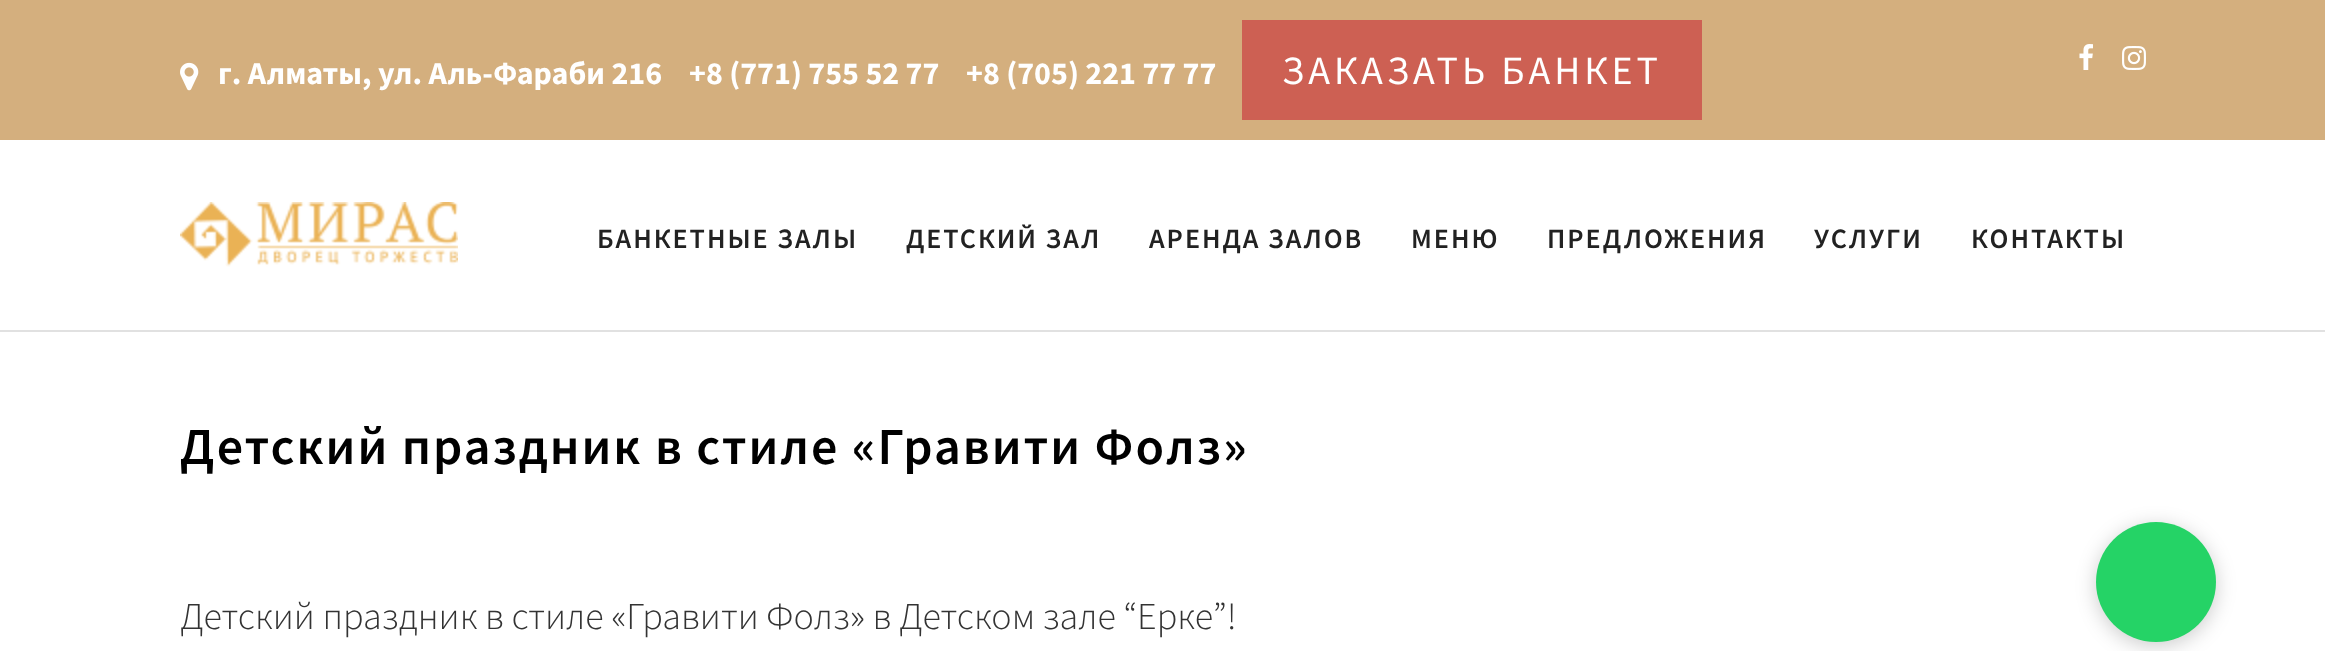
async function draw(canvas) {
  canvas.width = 2325;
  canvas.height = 651;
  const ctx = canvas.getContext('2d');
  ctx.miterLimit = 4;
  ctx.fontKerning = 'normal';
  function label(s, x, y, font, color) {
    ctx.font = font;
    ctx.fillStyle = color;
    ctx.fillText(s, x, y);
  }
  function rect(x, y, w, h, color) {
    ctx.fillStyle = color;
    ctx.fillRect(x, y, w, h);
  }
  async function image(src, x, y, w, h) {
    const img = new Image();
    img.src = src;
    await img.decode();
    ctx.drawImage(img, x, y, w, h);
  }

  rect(0, 0, 2325, 651, '#fff');
  rect(0, 0, 2325, 140, '#d4af7e');
  await image('assets/img1.png', 180, 62, 19, 29);
  label('г. Алматы, ул. Аль-Фараби 216', 218, 84, 'bold 32px Source Sans Pro', '#fff');
  label('+8 (771) 755 52 77', 689, 84, 'bold 32px Source Sans Pro', '#fff');
  label('+8 (705) 221 77 77', 966, 84, 'bold 32px Source Sans Pro', '#fff');
  rect(1242, 20, 460, 100, '#cd6053');
  ctx.letterSpacing = '4px';
  label('ЗАКАЗАТЬ БАНКЕТ', 1282, 84, '40px Source Sans Pro', '#fff');
  await image('assets/img2.png', 2079, 44, 14, 26);
  await image('assets/img3.png', 2122, 46, 24, 24);
  rect(0, 330, 2325, 2, '#e1e1e1');
  await image('assets/img4.png', 180, 202, 278, 65);
  ctx.letterSpacing = '2px';
  label('БАНКЕТНЫЕ ЗАЛЫ', 597, 248, '600 28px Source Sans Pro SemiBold', '#222');
  label('ДЕТСКИЙ ЗАЛ', 906, 248, '600 28px Source Sans Pro SemiBold', '#222');
  label('АРЕНДА ЗАЛОВ', 1149, 248, '600 28px Source Sans Pro SemiBold', '#222');
  label('МЕНЮ', 1411, 248, '600 28px Source Sans Pro SemiBold', '#222');
  label('ПРЕДЛОЖЕНИЯ', 1547, 248, '600 28px Source Sans Pro SemiBold', '#222');
  label('УСЛУГИ', 1814, 248, '600 28px Source Sans Pro SemiBold', '#222');
  label('КОНТАКТЫ', 1971, 248, '600 28px Source Sans Pro SemiBold', '#222');
  label('Детский праздник в стиле «Гравити Фолз»', 180, 464, '600 52px Source Sans Pro SemiBold', '#000');
  ctx.letterSpacing = '0px';
  label('Детский праздник в стиле «Гравити Фолз» в Детском зале “Ерке”!', 180, 629, '300 38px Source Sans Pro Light', '#333');
  ctx.fillStyle = '#00000033';
  ctx.filter = 'blur(10px)';
  ctx.beginPath();
  ctx.roundRect(2096, 526, 120, 120, 60);
  ctx.fill();
  ctx.filter = 'none';
  ctx.fillStyle = '#25d366';
  ctx.beginPath();
  ctx.arc(2156, 582, 60, 0, 2 * Math.PI);
  ctx.fill();
}

draw(document.querySelector('canvas'));
